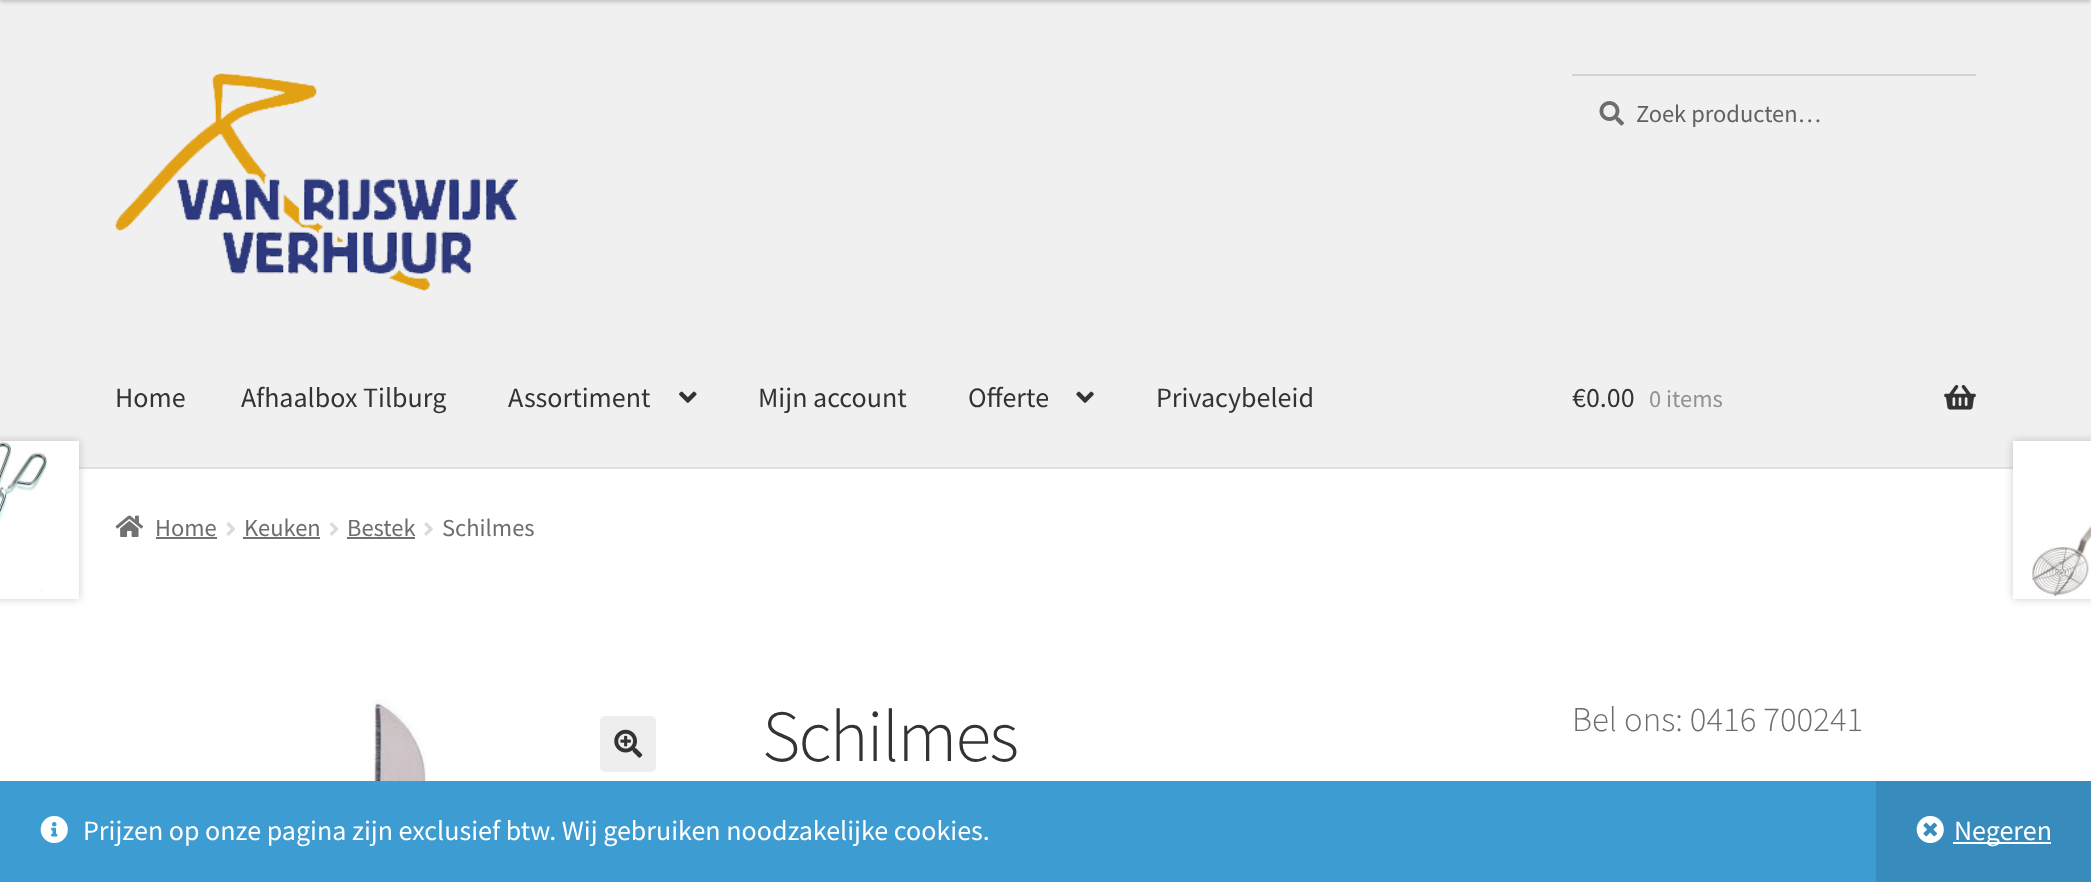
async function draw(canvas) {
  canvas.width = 2091;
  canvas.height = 882;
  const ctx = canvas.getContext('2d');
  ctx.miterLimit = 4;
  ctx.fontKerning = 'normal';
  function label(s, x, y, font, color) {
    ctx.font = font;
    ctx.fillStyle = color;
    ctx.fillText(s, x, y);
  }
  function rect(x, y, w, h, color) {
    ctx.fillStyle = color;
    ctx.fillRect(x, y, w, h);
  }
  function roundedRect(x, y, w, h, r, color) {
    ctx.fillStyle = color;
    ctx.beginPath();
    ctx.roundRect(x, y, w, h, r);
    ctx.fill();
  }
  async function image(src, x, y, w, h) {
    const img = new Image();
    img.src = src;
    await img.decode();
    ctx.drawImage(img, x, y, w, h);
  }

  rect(0, 0, 2091, 882, '#fff');
  rect(0, 0, 2091, 467, '#f0f0f0');
  ctx.fillStyle = '#00000033';
  ctx.filter = 'blur(2px)';
  ctx.beginPath();
  ctx.rect(0, -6, 2091, 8);
  ctx.fill();
  ctx.filter = 'none';
  rect(79, 467, 1934, 2, '#e1e1e1');
  await image('assets/img1.png', 115, 73, 403, 218);
  await image('assets/img2.png', 1599, 101, 25, 25);
  rect(1572, 74, 404, 2, '#d4d4d4');
  label('Zoek producten…', 1636, 122, '24.5px Source Sans Pro', '#616161');
  label('Home', 115, 407, '28px Source Sans Pro', '#333');
  label('Afhaalbox Tilburg', 241, 407, '28px Source Sans Pro', '#333');
  label('Assortiment', 508, 407, '28px Source Sans Pro', '#333');
  await image('assets/img3.png', 679, 391, 18, 12);
  label('Mijn account', 758, 407, '28px Source Sans Pro', '#333');
  label('Offerte', 968, 407, '28px Source Sans Pro', '#333');
  await image('assets/img4.png', 1076, 391, 18, 12);
  label('Privacybeleid', 1156, 407, '28px Source Sans Pro', '#333');
  label('€0.00', 1572, 407, '28px Source Sans Pro', '#333');
  label('0 items', 1649, 407, '24.5px Source Sans Pro', '#929292');
  await image('assets/img5.png', 1944, 385, 32, 25);
  await image('assets/img6.png', 115, 515, 28, 22);
  label('Home', 155, 536, '24.5px Source Sans Pro', '#6d6d6d');
  rect(156, 537, 61, 2, '#727272');
  await image('assets/img7.png', 226, 522, 9, 14);
  label('Keuken', 244, 536, '24.5px Source Sans Pro', '#6d6d6d');
  rect(243, 537, 77, 2, '#727272');
  await image('assets/img8.png', 330, 522, 9, 14);
  label('Bestek', 347, 536, '24.5px Source Sans Pro', '#6d6d6d');
  rect(347, 537, 68, 2, '#727272');
  await image('assets/img9.png', 424, 522, 9, 14);
  label('Schilmes', 442, 536, '24.5px Source Sans Pro', '#6d6d6d');
  ctx.fillStyle = '#00000033';
  ctx.filter = 'blur(4.5px)';
  ctx.beginPath();
  ctx.rect(-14, 441, 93, 158);
  ctx.fill();
  ctx.filter = 'none';
  rect(0, 441, 79, 158, '#fff');
  await image('assets/img10.png', 0, 441, 48, 150);
  ctx.fillStyle = '#00000033';
  ctx.filter = 'blur(4.5px)';
  ctx.beginPath();
  ctx.rect(2013, 441, 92, 158);
  ctx.fill();
  ctx.filter = 'none';
  rect(2013, 441, 78, 158, '#fff');
  await image('assets/img11.png', 2032, 525, 59, 72);
  await image('assets/img12.png', 370, 699, 56, 82);
  roundedRect(600, 716, 56, 56, 5, '#eee');
  await image('assets/img13.png', 614, 729, 29, 29);
  ctx.letterSpacing = '-1.75px';
  label('Schilmes', 762, 761, '300 73.5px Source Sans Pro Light', '#333');
  ctx.letterSpacing = '0px';
  label('Bel ons: 0416 700241', 1572, 731, '300 34.75px Source Sans Pro Light', '#6d6d6d');
  rect(0, 781, 1876, 101, '#3d9cd2');
  await image('assets/img14.png', 40, 815, 28, 29);
  label('Prijzen op onze pagina zijn exclusief btw. Wij gebruiken noodzakelijke cookies.', 83, 840, '28px Source Sans Pro', '#fff');
  rect(1876, 781, 215, 101, '#378cbd');
  await image('assets/img15.png', 1916, 815, 28, 29);
  rect(1953, 842, 98, 2, '#fff');
  label('Negeren', 1954, 840, '28px Source Sans Pro', '#fff');
}

draw(document.querySelector('canvas'));
